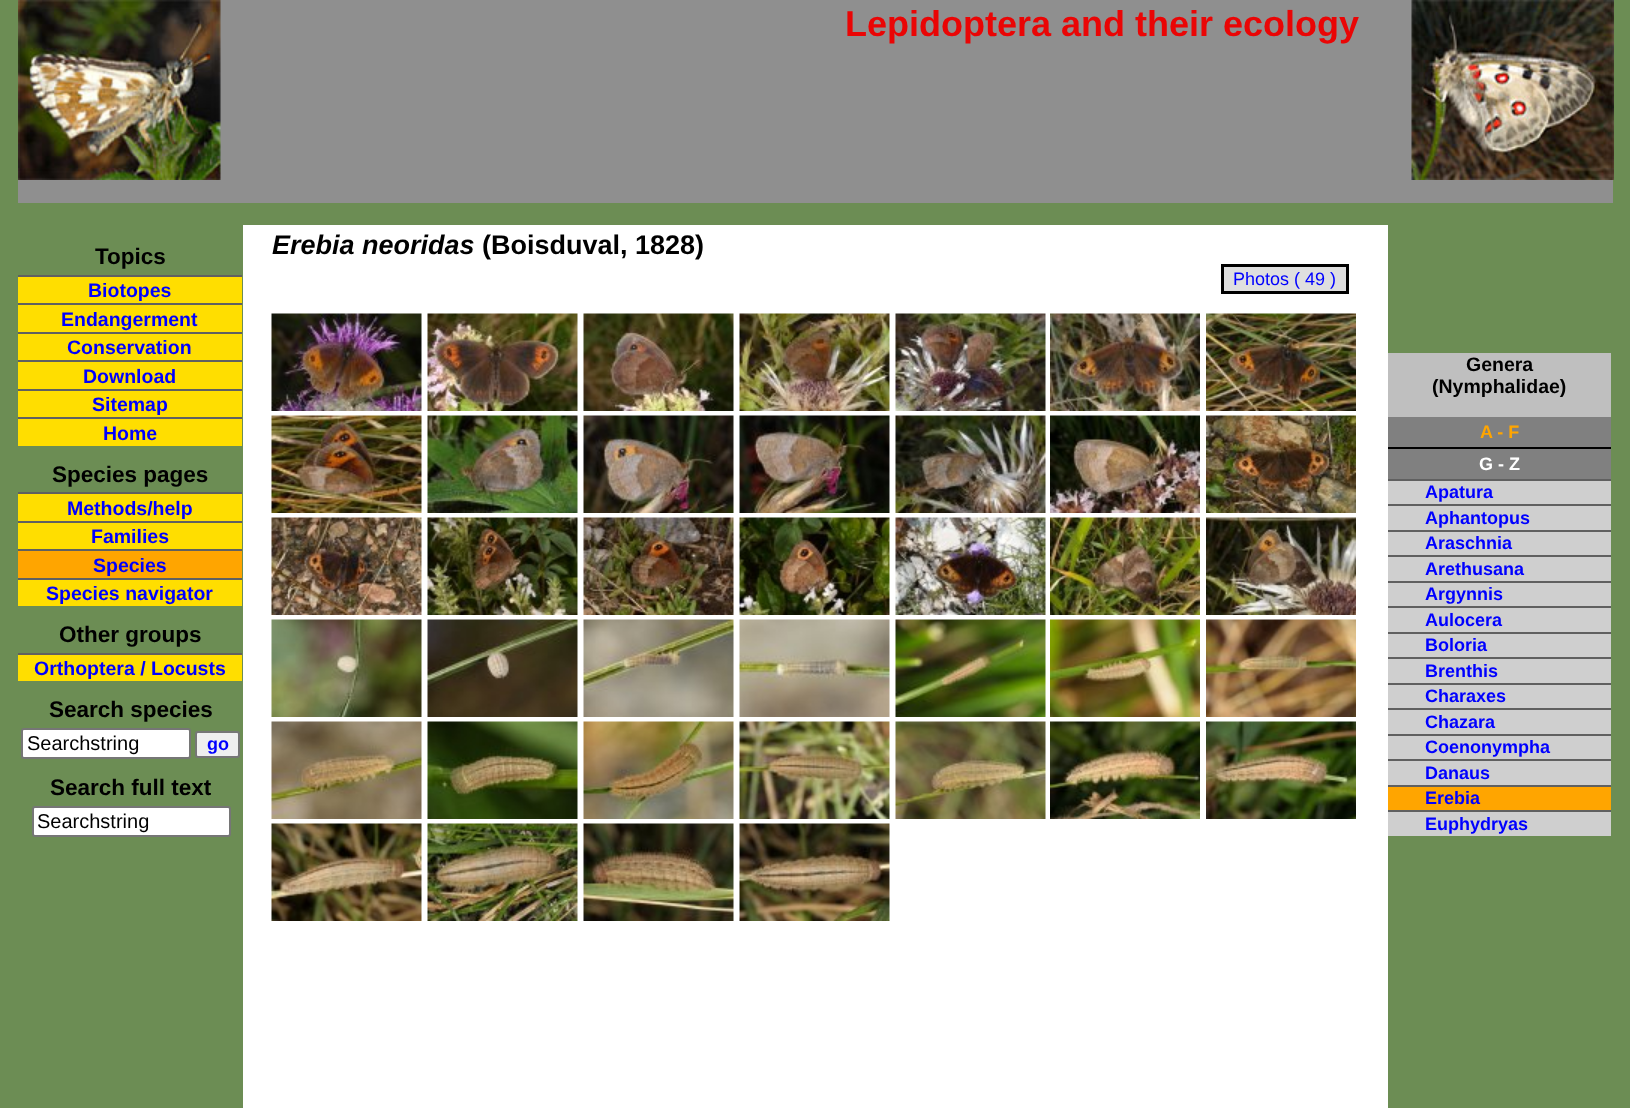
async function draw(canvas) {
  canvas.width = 1630;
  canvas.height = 1108;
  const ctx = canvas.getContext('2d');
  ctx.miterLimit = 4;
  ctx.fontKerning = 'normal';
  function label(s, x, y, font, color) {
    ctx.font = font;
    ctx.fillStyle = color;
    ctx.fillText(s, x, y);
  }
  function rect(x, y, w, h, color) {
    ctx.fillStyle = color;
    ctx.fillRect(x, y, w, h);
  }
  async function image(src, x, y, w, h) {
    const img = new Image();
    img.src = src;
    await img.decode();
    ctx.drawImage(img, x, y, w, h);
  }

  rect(0, 0, 1630, 1108, '#6c8d54');
  rect(18, 0, 1595, 203, '#8f8f8f');
  await image('assets/img1.png', 18, 0, 203, 180);
  label('Lepidoptera and their ecology', 845, 36, 'bold 36px Liberation Sans', '#ea0505');
  await image('assets/img2.png', 1411, 0, 203, 180);
  label('Topics', 95, 264, 'bold 22.5px Liberation Sans', '#000');
  rect(18, 277, 224, 26, '#ffde00');
  rect(18, 275, 224, 2, '#606060');
  label('Biotopes', 88, 297, 'bold 19.5px Liberation Sans', '#00f');
  rect(18, 305, 224, 27, '#ffde00');
  rect(18, 303, 224, 2, '#606060');
  label('Endangerment', 61, 326, 'bold 19.5px Liberation Sans', '#00f');
  rect(18, 334, 224, 26, '#ffde00');
  rect(18, 332, 224, 2, '#606060');
  label('Conservation', 67, 354, 'bold 19.5px Liberation Sans', '#00f');
  rect(18, 362, 224, 27, '#ffde00');
  rect(18, 360, 224, 2, '#606060');
  label('Download', 83, 383, 'bold 19.5px Liberation Sans', '#00f');
  rect(18, 391, 224, 26, '#ffde00');
  rect(18, 389, 224, 2, '#606060');
  label('Sitemap', 92, 411, 'bold 19.5px Liberation Sans', '#00f');
  rect(18, 419, 224, 27, '#ffde00');
  rect(18, 417, 224, 2, '#606060');
  label('Home', 103, 440, 'bold 19.5px Liberation Sans', '#00f');
  label('Species pages', 52, 482, 'bold 22.5px Liberation Sans', '#000');
  rect(18, 494, 224, 27, '#ffde00');
  rect(18, 492, 224, 2, '#606060');
  label('Methods/help', 67, 515, 'bold 19.5px Liberation Sans', '#00f');
  rect(18, 523, 224, 26, '#ffde00');
  rect(18, 521, 224, 2, '#606060');
  label('Families', 91, 543, 'bold 19.5px Liberation Sans', '#00f');
  rect(18, 551, 224, 27, '#ffa500');
  rect(18, 549, 224, 2, '#606060');
  label('Species', 93, 572, 'bold 19.5px Liberation Sans', '#00f');
  rect(18, 580, 224, 26, '#ffde00');
  rect(18, 578, 224, 2, '#606060');
  label('Species navigator', 46, 600, 'bold 19.5px Liberation Sans', '#00f');
  label('Other groups', 59, 642, 'bold 22.5px Liberation Sans', '#000');
  rect(18, 655, 224, 26, '#ffde00');
  rect(18, 653, 224, 2, '#606060');
  label('Orthoptera / Locusts', 34, 675, 'bold 19.5px Liberation Sans', '#00f');
  label('Search species', 49, 717, 'bold 22.5px Liberation Sans', '#000');
  ctx.fillStyle = '#fff';
  ctx.beginPath();
  ctx.roundRect(22, 729, 168, 29, 2);
  ctx.fill();
  ctx.strokeStyle = '#767676';
  ctx.lineWidth = 2;
  ctx.stroke();
  label('Searchstring', 27, 750, '20px Liberation Sans', '#000');
  ctx.fillStyle = '#efefef';
  ctx.beginPath();
  ctx.roundRect(196, 732, 43, 25, 2);
  ctx.fill();
  ctx.stroke();
  label('go', 207, 750, 'bold 18px Liberation Sans', '#00f');
  label('Search full text', 50, 795, 'bold 22.5px Liberation Sans', '#000');
  ctx.fillStyle = '#fff';
  ctx.beginPath();
  ctx.roundRect(33, 807, 197, 29, 2);
  ctx.fill();
  ctx.stroke();
  label('Searchstring', 37, 828, '20px Liberation Sans', '#000');
  rect(243, 225, 1145, 883, '#fff');
  label('Erebia neoridas', 272, 254, 'italic bold 27px Liberation Sans', '#000');
  label('(Boisduval, 1828)', 482, 254, 'bold 27px Liberation Sans', '#000');
  ctx.fillStyle = '#dfdfdf';
  ctx.beginPath();
  ctx.rect(1222.5, 265.5, 125, 27);
  ctx.fill();
  ctx.strokeStyle = '#000';
  ctx.lineWidth = 3;
  ctx.stroke();
  label('Photos ( 49 )', 1233, 285, '18px Liberation Sans', '#00f');
  await image('assets/img3.png', 271, 313, 151, 98);
  await image('assets/img4.png', 427, 313, 151, 98);
  await image('assets/img5.png', 583, 313, 151, 98);
  await image('assets/img6.png', 739, 313, 151, 98);
  await image('assets/img7.png', 895, 313, 151, 98);
  await image('assets/img8.png', 1050, 313, 150, 98);
  await image('assets/img9.png', 1206, 313, 150, 98);
  await image('assets/img10.png', 271, 415, 151, 98);
  await image('assets/img11.png', 427, 415, 151, 98);
  await image('assets/img12.png', 583, 415, 151, 98);
  await image('assets/img13.png', 739, 415, 151, 98);
  await image('assets/img14.png', 895, 415, 151, 98);
  await image('assets/img15.png', 1050, 415, 150, 98);
  await image('assets/img16.png', 1206, 415, 150, 98);
  await image('assets/img17.png', 271, 517, 151, 98);
  await image('assets/img18.png', 427, 517, 151, 98);
  await image('assets/img19.png', 583, 517, 151, 98);
  await image('assets/img20.png', 739, 517, 151, 98);
  await image('assets/img21.png', 895, 517, 151, 98);
  await image('assets/img22.png', 1050, 517, 150, 98);
  await image('assets/img23.png', 1206, 517, 150, 98);
  await image('assets/img24.png', 271, 619, 151, 98);
  await image('assets/img25.png', 427, 619, 151, 98);
  await image('assets/img26.png', 583, 619, 151, 98);
  await image('assets/img27.png', 739, 619, 151, 98);
  await image('assets/img28.png', 895, 619, 151, 98);
  await image('assets/img29.png', 1050, 619, 150, 98);
  await image('assets/img30.png', 1206, 619, 150, 98);
  await image('assets/img31.png', 271, 721, 151, 98);
  await image('assets/img32.png', 427, 721, 151, 98);
  await image('assets/img33.png', 583, 721, 151, 98);
  await image('assets/img34.png', 739, 721, 151, 98);
  await image('assets/img35.png', 895, 721, 151, 98);
  await image('assets/img36.png', 1050, 721, 150, 98);
  await image('assets/img37.png', 1206, 721, 150, 98);
  await image('assets/img38.png', 271, 823, 151, 98);
  await image('assets/img39.png', 427, 823, 151, 98);
  await image('assets/img40.png', 583, 823, 151, 98);
  await image('assets/img41.png', 739, 823, 151, 98);
  rect(1388, 353, 223, 64, '#bfbfbf');
  label('Genera', 1466, 371, 'bold 19.5px Liberation Sans', '#000');
  label('(Nymphalidae)', 1432, 393, 'bold 19.5px Liberation Sans', '#000');
  rect(1388, 417, 223, 30, '#808080');
  rect(1388, 447, 223, 2, '#000');
  label('A - F', 1480, 438, 'bold 18px Liberation Sans', '#ffa500');
  rect(1388, 449, 223, 30, '#808080');
  label('G - Z', 1479, 470, 'bold 18px Liberation Sans', '#fff');
  rect(1388, 481, 223, 23, '#cfcfcf');
  rect(1388, 479, 223, 2, '#606060');
  label('Apatura', 1425, 498, 'bold 18px Liberation Sans', '#00f');
  rect(1388, 506, 223, 24, '#cfcfcf');
  rect(1388, 504, 223, 2, '#606060');
  label('Aphantopus', 1425, 524, 'bold 18px Liberation Sans', '#00f');
  rect(1388, 532, 223, 23, '#cfcfcf');
  rect(1388, 530, 223, 2, '#606060');
  label('Araschnia', 1425, 549, 'bold 18px Liberation Sans', '#00f');
  rect(1388, 557, 223, 24, '#cfcfcf');
  rect(1388, 555, 223, 2, '#606060');
  label('Arethusana', 1425, 575, 'bold 18px Liberation Sans', '#00f');
  rect(1388, 583, 223, 23, '#cfcfcf');
  rect(1388, 581, 223, 2, '#606060');
  label('Argynnis', 1425, 600, 'bold 18px Liberation Sans', '#00f');
  rect(1388, 608, 223, 24, '#cfcfcf');
  rect(1388, 606, 223, 2, '#606060');
  label('Aulocera', 1425, 626, 'bold 18px Liberation Sans', '#00f');
  rect(1388, 634, 223, 23, '#cfcfcf');
  rect(1388, 632, 223, 2, '#606060');
  label('Boloria', 1425, 651, 'bold 18px Liberation Sans', '#00f');
  rect(1388, 659, 223, 24, '#cfcfcf');
  rect(1388, 657, 223, 2, '#606060');
  label('Brenthis', 1425, 677, 'bold 18px Liberation Sans', '#00f');
  rect(1388, 685, 223, 23, '#cfcfcf');
  rect(1388, 683, 223, 2, '#606060');
  label('Charaxes', 1425, 702, 'bold 18px Liberation Sans', '#00f');
  rect(1388, 710, 223, 24, '#cfcfcf');
  rect(1388, 708, 223, 2, '#606060');
  label('Chazara', 1425, 728, 'bold 18px Liberation Sans', '#00f');
  rect(1388, 736, 223, 23, '#cfcfcf');
  rect(1388, 734, 223, 2, '#606060');
  label('Coenonympha', 1425, 753, 'bold 18px Liberation Sans', '#00f');
  rect(1388, 761, 223, 24, '#cfcfcf');
  rect(1388, 759, 223, 2, '#606060');
  label('Danaus', 1425, 779, 'bold 18px Liberation Sans', '#00f');
  rect(1388, 787, 223, 23, '#ffa500');
  rect(1388, 785, 223, 2, '#606060');
  label('Erebia', 1425, 804, 'bold 18px Liberation Sans', '#00f');
  rect(1388, 812, 223, 24, '#cfcfcf');
  rect(1388, 810, 223, 2, '#606060');
  label('Euphydryas', 1425, 830, 'bold 18px Liberation Sans', '#00f');
}

draw(document.querySelector('canvas'));
